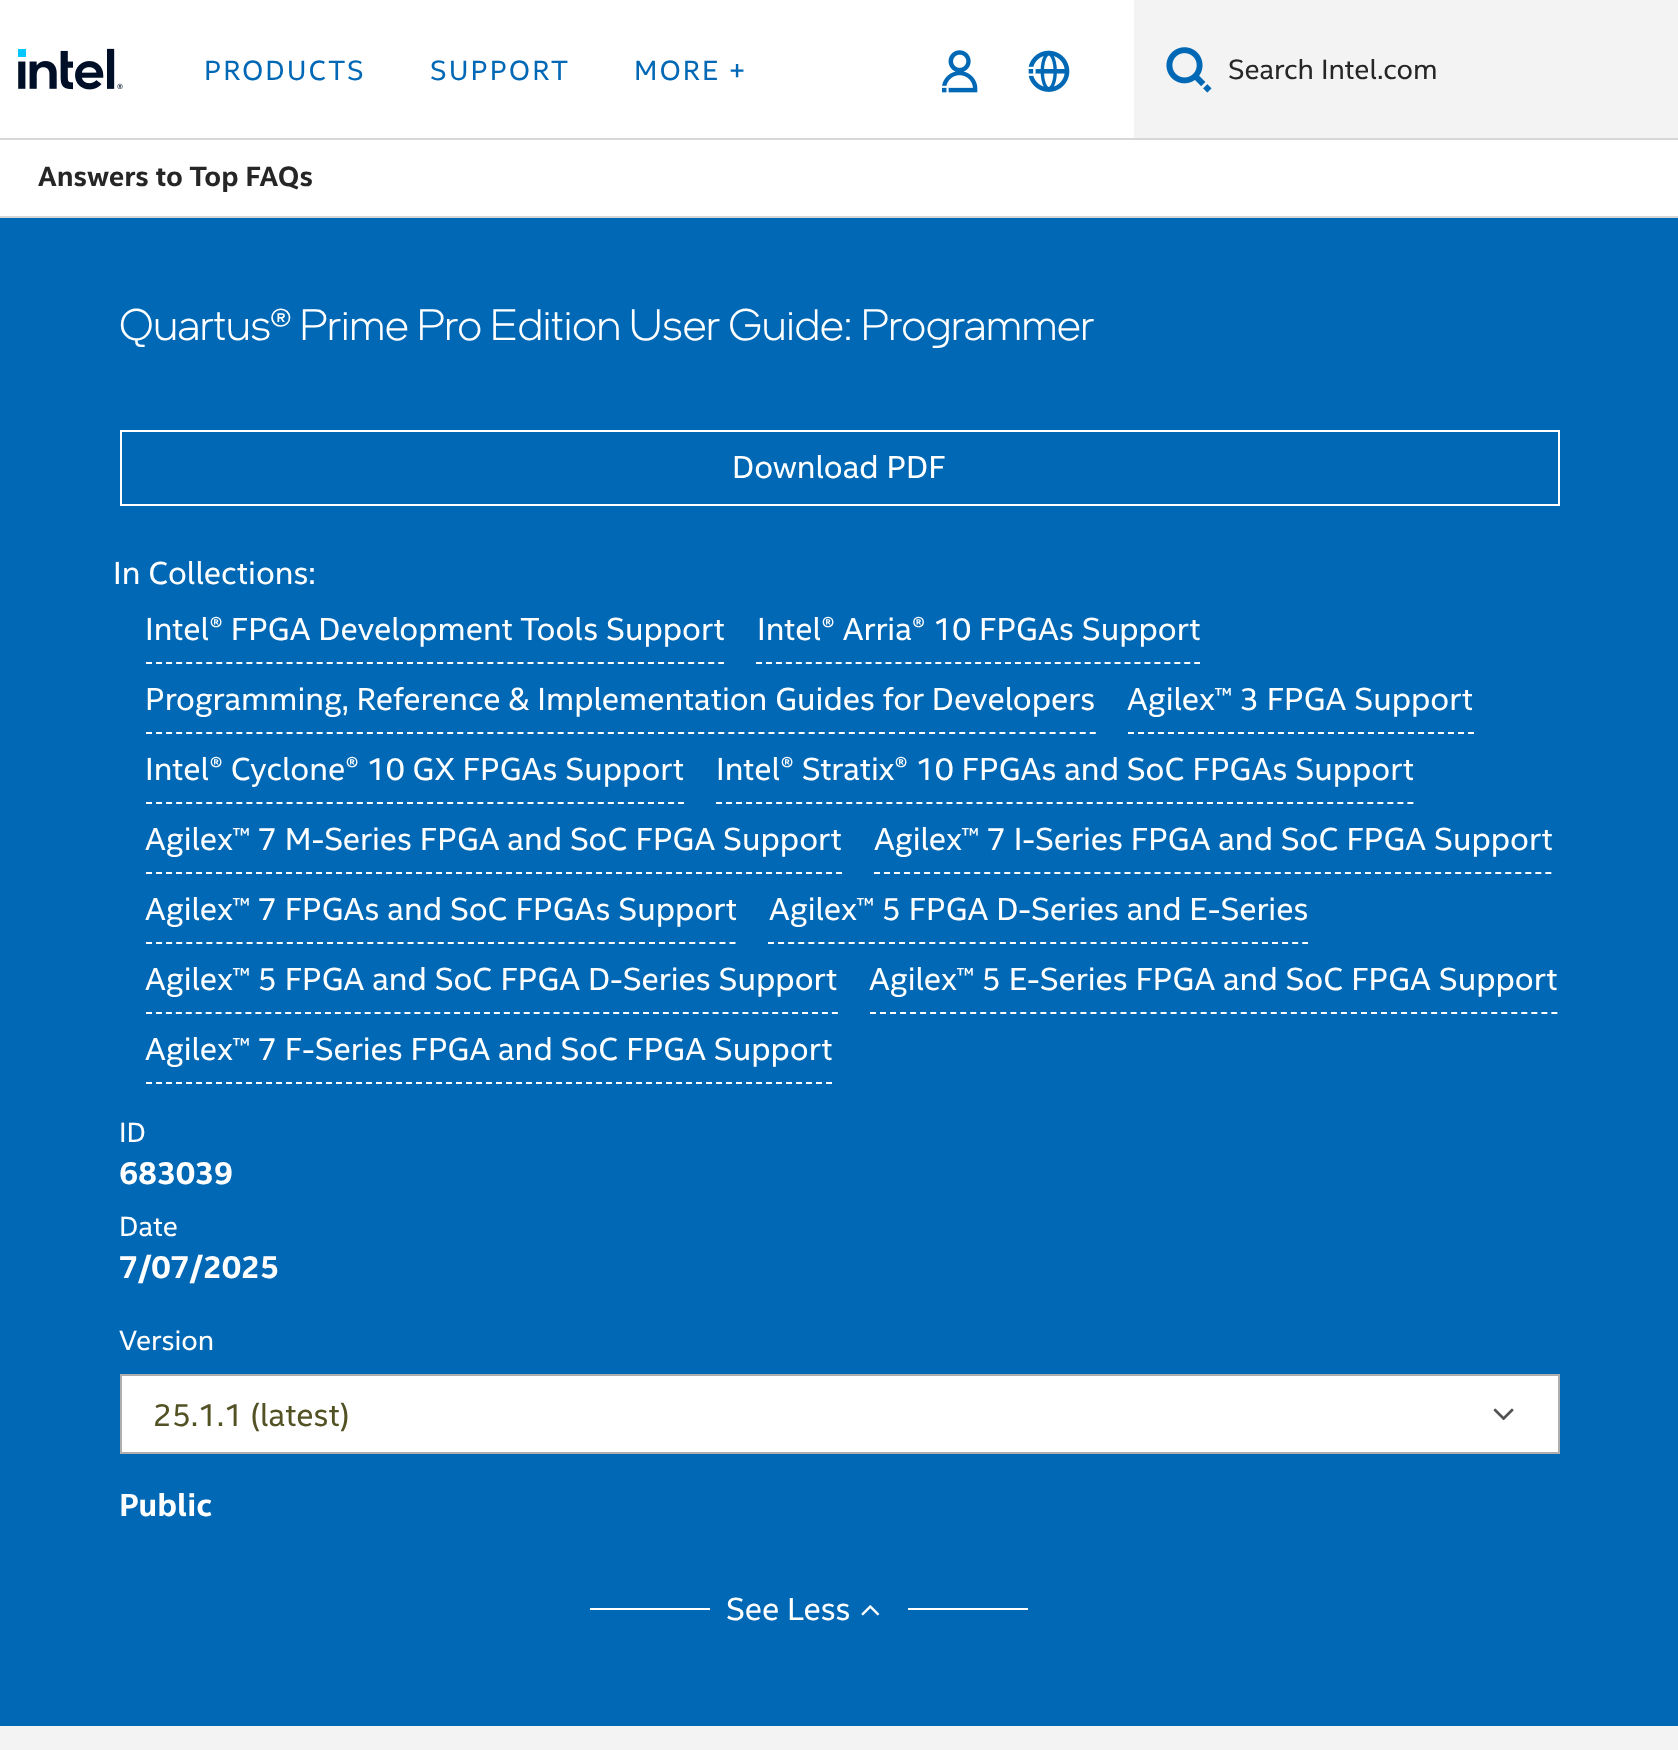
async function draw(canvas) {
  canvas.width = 1678;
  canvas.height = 1750;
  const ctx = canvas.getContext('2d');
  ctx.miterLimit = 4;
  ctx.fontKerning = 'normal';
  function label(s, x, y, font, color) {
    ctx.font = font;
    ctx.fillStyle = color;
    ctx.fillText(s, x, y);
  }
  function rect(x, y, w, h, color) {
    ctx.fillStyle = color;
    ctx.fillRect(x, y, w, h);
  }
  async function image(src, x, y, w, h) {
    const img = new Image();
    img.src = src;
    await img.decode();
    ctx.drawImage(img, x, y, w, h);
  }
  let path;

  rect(0, 0, 1678, 1750, '#fff');
  rect(0, 138, 1678, 2, '#d7d7d7');
  await image('assets/img1.png', 18, 48, 105, 42);
  ctx.letterSpacing = '2px';
  label('PRODUCTS', 204, 80, '28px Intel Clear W', '#0068b5');
  label('SUPPORT', 430, 80, '28px Intel Clear W', '#0068b5');
  label('MORE +', 634, 80, '28px Intel Clear W', '#0068b5');
  await image('assets/img2.png', 942, 50, 36, 43);
  await image('assets/img3.png', 1028, 50, 42, 42);
  rect(1134, 0, 544, 138, '#f3f3f3');
  await image('assets/img4.png', 1166, 47, 46, 46);
  ctx.letterSpacing = '0px';
  label('Search Intel.com', 1228, 79, '28px Intel Clear W', '#262626');
  rect(0, 216, 1678, 2, '#d7d7d7');
  label('Answers to Top FAQs', 38, 186, 'bold 28px Intel Clear W', '#262626');
  rect(0, 218, 1678, 1508, '#0068b5');
  label('Quartus® Prime Pro Edition User Guide: Programmer', 119, 340, '300 44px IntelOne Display', '#fff');
  ctx.strokeStyle = '#fff';
  ctx.lineWidth = 2;
  ctx.strokeRect(121, 431, 1438, 74);
  label('Download PDF', 732, 478, '32px Intel Clear W', '#fff');
  label('In Collections:', 113, 584, '32px Intel Clear W', '#fff');
  path = new Path2D('M146 663H724');
  ctx.setLineDash([6, 4.04]);
  ctx.stroke(path);
  label('Intel® FPGA Development Tools Support', 145, 640, '32px Intel Clear W', '#fff');
  path = new Path2D('M756 663H1200');
  ctx.setLineDash([6, 3.96]);
  ctx.stroke(path);
  label('Intel® Arria® 10 FPGAs Support', 757, 640, '32px Intel Clear W', '#fff');
  path = new Path2D('M146 733H1096');
  ctx.setLineDash([6, 4.04]);
  ctx.stroke(path);
  label('Programming, Reference & Implementation Guides for Developers', 145, 710, '32px Intel Clear W', '#fff');
  path = new Path2D('M1128 733H1474');
  ctx.setLineDash([6, 4]);
  ctx.stroke(path);
  label('Agilex™ 3 FPGA Support', 1127, 710, '32px Intel Clear W', '#fff');
  path = new Path2D('M146 803H684');
  ctx.setLineDash([6, 4.04]);
  ctx.stroke(path);
  label('Intel® Cyclone® 10 GX FPGAs Support', 145, 780, '32px Intel Clear W', '#fff');
  path = new Path2D('M716 803H1414');
  ctx.setLineDash([6, 4.02]);
  ctx.stroke(path);
  label('Intel® Stratix® 10 FPGAs and SoC FPGAs Support', 716, 780, '32px Intel Clear W', '#fff');
  path = new Path2D('M146 873H842');
  ctx.setLineDash([6, 4]);
  ctx.stroke(path);
  label('Agilex™ 7 M-Series FPGA and SoC FPGA Support', 145, 850, '32px Intel Clear W', '#fff');
  path = new Path2D('M874 873H1552');
  ctx.setLineDash([6, 4.02]);
  ctx.stroke(path);
  label('Agilex™ 7 I-Series FPGA and SoC FPGA Support', 874, 850, '32px Intel Clear W', '#fff');
  path = new Path2D('M146 943H736');
  ctx.setLineDash([6, 4.06]);
  ctx.stroke(path);
  label('Agilex™ 7 FPGAs and SoC FPGAs Support', 145, 920, '32px Intel Clear W', '#fff');
  path = new Path2D('M768 943H1308');
  ctx.setLineDash([6, 4.08]);
  ctx.stroke(path);
  label('Agilex™ 5 FPGA D-Series and E-Series', 769, 920, '32px Intel Clear W', '#fff');
  path = new Path2D('M146 1013H838');
  ctx.setLineDash([6, 3.94]);
  ctx.stroke(path);
  label('Agilex™ 5 FPGA and SoC FPGA D-Series Support', 145, 990, '32px Intel Clear W', '#fff');
  path = new Path2D('M870 1013H1558');
  ctx.setLineDash([6, 4.02]);
  ctx.stroke(path);
  label('Agilex™ 5 E-Series FPGA and SoC FPGA Support', 869, 990, '32px Intel Clear W', '#fff');
  path = new Path2D('M146 1083H832');
  ctx.setLineDash([6, 4]);
  ctx.stroke(path);
  label('Agilex™ 7 F-Series FPGA and SoC FPGA Support', 145, 1060, '32px Intel Clear W', '#fff');
  label('ID', 119, 1142, '28px Intel Clear W', '#fff');
  label('683039', 119, 1184, 'bold 32px Intel Clear W', '#fff');
  label('Date', 119, 1236, '28px Intel Clear W', '#fff');
  label('7/07/2025', 119, 1278, 'bold 32px Intel Clear W', '#fff');
  label('Version', 119, 1350, '28px Intel Clear W', '#fff');
  ctx.beginPath();
  ctx.rect(121, 1375, 1438, 78);
  ctx.fill();
  ctx.strokeStyle = '#aeaeae';
  ctx.setLineDash([]);
  ctx.stroke();
  label('25.1.1 (latest)', 153, 1426, '32px Intel Clear W', '#525225');
  await image('assets/img5.png', 1493, 1408, 21, 13);
  label('Public', 119, 1516, 'bold 32px Intel Clear W', '#fff');
  rect(590, 1608, 120, 2, '#fff');
  label('See Less', 726, 1620, '32px Intel Clear W', '#fff');
  await image('assets/img6.png', 861, 1605, 19, 11);
  rect(908, 1608, 120, 2, '#fff');
  rect(0, 1726, 1678, 24, '#f3f3f3');
}

draw(document.querySelector('canvas'));
